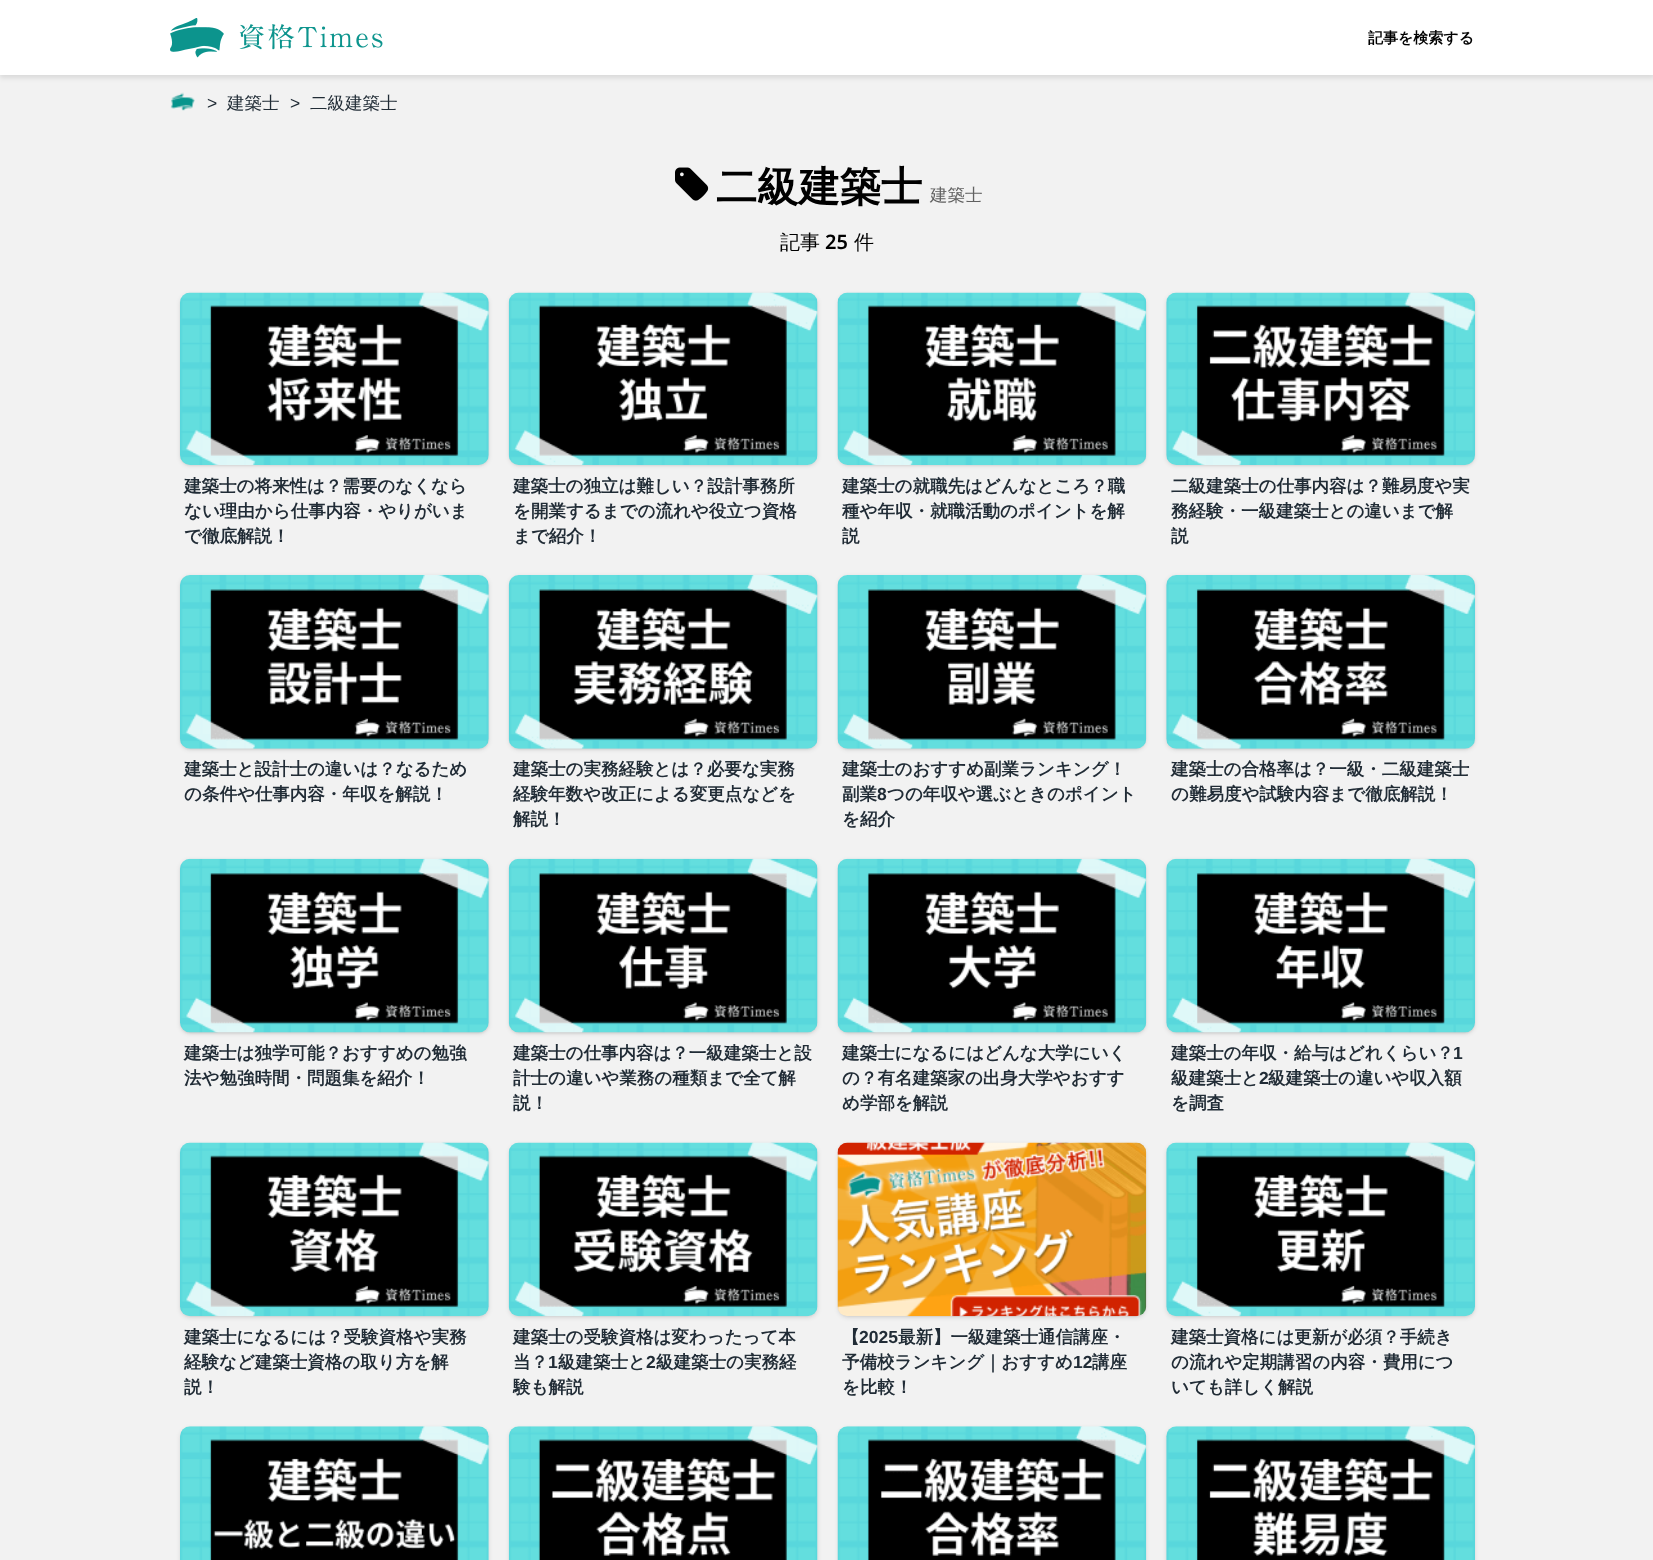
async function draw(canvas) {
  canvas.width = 1653;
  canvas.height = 1560;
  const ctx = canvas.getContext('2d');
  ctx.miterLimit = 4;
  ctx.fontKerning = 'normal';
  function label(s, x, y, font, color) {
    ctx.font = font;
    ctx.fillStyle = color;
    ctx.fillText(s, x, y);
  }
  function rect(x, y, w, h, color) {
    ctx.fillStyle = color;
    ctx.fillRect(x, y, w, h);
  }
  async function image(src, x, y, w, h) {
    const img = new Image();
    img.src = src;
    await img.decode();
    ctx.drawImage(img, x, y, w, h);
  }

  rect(0, 0, 1653, 1560, '#f2f2f2');
  ctx.fillStyle = '#0000001a';
  ctx.filter = 'blur(2.5px)';
  ctx.beginPath();
  ctx.rect(0, 3, 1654, 75);
  ctx.fill();
  ctx.filter = 'none';
  rect(0, 0, 1653, 75, '#fff');
  await image('assets/img1.png', 170, 18, 213, 40);
  label('記事を検索する', 1368, 43, 'bold 15px WenQuanYi Zen Hei', '#000');
  await image('assets/img2.png', 170, 92, 25, 19);
  label('>', 207, 109, '17.5px Liberation Sans', '#212c36');
  label('建築士', 227, 109, '500 17.5px WenQuanYi Zen Hei', '#212c36');
  label('>', 290, 109, '17.5px Liberation Sans', '#212c36');
  label('二級建築士', 310, 109, '500 17.5px WenQuanYi Zen Hei', '#212c36');
  await image('assets/img3.png', 675, 167, 34, 34);
  label('二級建築士', 716, 201, 'bold 41.25px WenQuanYi Zen Hei', '#000');
  label('建築士', 930, 201, '500 17.5px WenQuanYi Zen Hei', '#616161');
  label('記事', 780, 249, '500 20px WenQuanYi Zen Hei', '#000');
  label('25', 825, 249, '600 20px Noto Sans', '#000');
  label('件', 854, 249, '500 20px WenQuanYi Zen Hei', '#000');
  ctx.fillStyle = '#0000001a';
  ctx.filter = 'blur(1px)';
  ctx.beginPath();
  ctx.roundRect(181, 295, 307, 170, 9);
  ctx.fill();
  ctx.filter = 'none';
  ctx.filter = 'blur(2px)';
  ctx.beginPath();
  ctx.roundRect(180, 294, 309, 172, 10);
  ctx.fill();
  ctx.filter = 'none';
  await image('assets/img4.png', 180, 292, 309, 173);
  label('建築士の将来性は？需要のなくなら', 184, 492, 'bold 17.5px WenQuanYi Zen Hei', '#212c36');
  label('ない理由から仕事内容・やりがいま', 184, 517, 'bold 17.5px WenQuanYi Zen Hei', '#212c36');
  label('で徹底解説！', 184, 542, 'bold 17.5px WenQuanYi Zen Hei', '#212c36');
  ctx.fillStyle = '#0000001a';
  ctx.filter = 'blur(1px)';
  ctx.beginPath();
  ctx.roundRect(510, 295, 306, 170, 9);
  ctx.fill();
  ctx.filter = 'none';
  ctx.filter = 'blur(2px)';
  ctx.beginPath();
  ctx.roundRect(509, 294, 309, 172, 10);
  ctx.fill();
  ctx.filter = 'none';
  await image('assets/img5.png', 508, 292, 310, 173);
  label('建築士の独立は難しい？設計事務所', 513, 492, 'bold 17.5px WenQuanYi Zen Hei', '#212c36');
  label('を開業するまでの流れや役立つ資格', 513, 517, 'bold 17.5px WenQuanYi Zen Hei', '#212c36');
  label('まで紹介！', 513, 542, 'bold 17.5px WenQuanYi Zen Hei', '#212c36');
  ctx.fillStyle = '#0000001a';
  ctx.filter = 'blur(1px)';
  ctx.beginPath();
  ctx.roundRect(839, 295, 306, 170, 9);
  ctx.fill();
  ctx.filter = 'none';
  ctx.filter = 'blur(2px)';
  ctx.beginPath();
  ctx.roundRect(838, 294, 308, 172, 10);
  ctx.fill();
  ctx.filter = 'none';
  await image('assets/img6.png', 837, 292, 310, 173);
  label('建築士の就職先はどんなところ？職', 842, 492, 'bold 17.5px WenQuanYi Zen Hei', '#212c36');
  label('種や年収・就職活動のポイントを解', 842, 517, 'bold 17.5px WenQuanYi Zen Hei', '#212c36');
  label('説', 842, 542, 'bold 17.5px WenQuanYi Zen Hei', '#212c36');
  ctx.fillStyle = '#0000001a';
  ctx.filter = 'blur(1px)';
  ctx.beginPath();
  ctx.roundRect(1168, 295, 306, 170, 9);
  ctx.fill();
  ctx.filter = 'none';
  ctx.filter = 'blur(2px)';
  ctx.beginPath();
  ctx.roundRect(1166, 294, 309, 172, 10);
  ctx.fill();
  ctx.filter = 'none';
  await image('assets/img7.png', 1166, 292, 309, 173);
  label('二級建築士の仕事内容は？難易度や実', 1171, 492, 'bold 17.5px WenQuanYi Zen Hei', '#212c36');
  label('務経験・一級建築士との違いまで解', 1171, 517, 'bold 17.5px WenQuanYi Zen Hei', '#212c36');
  label('説', 1171, 542, 'bold 17.5px WenQuanYi Zen Hei', '#212c36');
  ctx.fillStyle = '#0000001a';
  ctx.filter = 'blur(1px)';
  ctx.beginPath();
  ctx.roundRect(181, 578, 307, 171, 9);
  ctx.fill();
  ctx.filter = 'none';
  ctx.filter = 'blur(2px)';
  ctx.beginPath();
  ctx.roundRect(180, 576, 309, 174, 10);
  ctx.fill();
  ctx.filter = 'none';
  await image('assets/img8.png', 180, 575, 309, 174);
  label('建築士と設計士の違いは？なるため', 184, 775, 'bold 17.5px WenQuanYi Zen Hei', '#212c36');
  label('の条件や仕事内容・年収を解説！', 184, 800, 'bold 17.5px WenQuanYi Zen Hei', '#212c36');
  ctx.fillStyle = '#0000001a';
  ctx.filter = 'blur(1px)';
  ctx.beginPath();
  ctx.roundRect(510, 578, 306, 171, 9);
  ctx.fill();
  ctx.filter = 'none';
  ctx.filter = 'blur(2px)';
  ctx.beginPath();
  ctx.roundRect(509, 576, 309, 174, 10);
  ctx.fill();
  ctx.filter = 'none';
  await image('assets/img9.png', 508, 575, 310, 174);
  label('建築士の実務経験とは？必要な実務', 513, 775, 'bold 17.5px WenQuanYi Zen Hei', '#212c36');
  label('経験年数や改正による変更点などを', 513, 800, 'bold 17.5px WenQuanYi Zen Hei', '#212c36');
  label('解説！', 513, 825, 'bold 17.5px WenQuanYi Zen Hei', '#212c36');
  ctx.fillStyle = '#0000001a';
  ctx.filter = 'blur(1px)';
  ctx.beginPath();
  ctx.roundRect(839, 578, 306, 171, 9);
  ctx.fill();
  ctx.filter = 'none';
  ctx.filter = 'blur(2px)';
  ctx.beginPath();
  ctx.roundRect(838, 576, 308, 174, 10);
  ctx.fill();
  ctx.filter = 'none';
  await image('assets/img10.png', 837, 575, 310, 174);
  label('建築士のおすすめ副業ランキング！', 842, 775, 'bold 17.5px WenQuanYi Zen Hei', '#212c36');
  label('副業', 842, 800, 'bold 17.5px WenQuanYi Zen Hei', '#212c36');
  label('8', 877, 800, 'bold 17.5px Liberation Sans', '#212c36');
  label('つの年収や選ぶときのポイント', 887, 800, 'bold 17.5px WenQuanYi Zen Hei', '#212c36');
  label('を紹介', 842, 825, 'bold 17.5px WenQuanYi Zen Hei', '#212c36');
  ctx.fillStyle = '#0000001a';
  ctx.filter = 'blur(1px)';
  ctx.beginPath();
  ctx.roundRect(1168, 578, 306, 171, 9);
  ctx.fill();
  ctx.filter = 'none';
  ctx.filter = 'blur(2px)';
  ctx.beginPath();
  ctx.roundRect(1166, 576, 309, 174, 10);
  ctx.fill();
  ctx.filter = 'none';
  await image('assets/img11.png', 1166, 575, 309, 174);
  label('建築士の合格率は？一級・二級建築士', 1171, 775, 'bold 17.5px WenQuanYi Zen Hei', '#212c36');
  label('の難易度や試験内容まで徹底解説！', 1171, 800, 'bold 17.5px WenQuanYi Zen Hei', '#212c36');
  ctx.fillStyle = '#0000001a';
  ctx.filter = 'blur(1px)';
  ctx.beginPath();
  ctx.roundRect(181, 861, 307, 172, 9);
  ctx.fill();
  ctx.filter = 'none';
  ctx.filter = 'blur(2px)';
  ctx.beginPath();
  ctx.roundRect(180, 860, 309, 174, 10);
  ctx.fill();
  ctx.filter = 'none';
  await image('assets/img12.png', 180, 858, 309, 175);
  label('建築士は独学可能？おすすめの勉強', 184, 1059, 'bold 17.5px WenQuanYi Zen Hei', '#212c36');
  label('法や勉強時間・問題集を紹介！', 184, 1084, 'bold 17.5px WenQuanYi Zen Hei', '#212c36');
  ctx.fillStyle = '#0000001a';
  ctx.filter = 'blur(1px)';
  ctx.beginPath();
  ctx.roundRect(510, 861, 306, 172, 9);
  ctx.fill();
  ctx.filter = 'none';
  ctx.filter = 'blur(2px)';
  ctx.beginPath();
  ctx.roundRect(509, 860, 309, 174, 10);
  ctx.fill();
  ctx.filter = 'none';
  await image('assets/img13.png', 508, 858, 310, 175);
  label('建築士の仕事内容は？一級建築士と設', 513, 1059, 'bold 17.5px WenQuanYi Zen Hei', '#212c36');
  label('計士の違いや業務の種類まで全て解', 513, 1084, 'bold 17.5px WenQuanYi Zen Hei', '#212c36');
  label('説！', 513, 1109, 'bold 17.5px WenQuanYi Zen Hei', '#212c36');
  ctx.fillStyle = '#0000001a';
  ctx.filter = 'blur(1px)';
  ctx.beginPath();
  ctx.roundRect(839, 861, 306, 172, 9);
  ctx.fill();
  ctx.filter = 'none';
  ctx.filter = 'blur(2px)';
  ctx.beginPath();
  ctx.roundRect(838, 860, 308, 174, 10);
  ctx.fill();
  ctx.filter = 'none';
  await image('assets/img14.png', 837, 858, 310, 175);
  label('建築士になるにはどんな大学にいく', 842, 1059, 'bold 17.5px WenQuanYi Zen Hei', '#212c36');
  label('の？有名建築家の出身大学やおすす', 842, 1084, 'bold 17.5px WenQuanYi Zen Hei', '#212c36');
  label('め学部を解説', 842, 1109, 'bold 17.5px WenQuanYi Zen Hei', '#212c36');
  ctx.fillStyle = '#0000001a';
  ctx.filter = 'blur(1px)';
  ctx.beginPath();
  ctx.roundRect(1168, 861, 306, 172, 9);
  ctx.fill();
  ctx.filter = 'none';
  ctx.filter = 'blur(2px)';
  ctx.beginPath();
  ctx.roundRect(1166, 860, 309, 174, 10);
  ctx.fill();
  ctx.filter = 'none';
  await image('assets/img15.png', 1166, 858, 309, 175);
  label('建築士の年収・給与はどれくらい？', 1171, 1059, 'bold 17.5px WenQuanYi Zen Hei', '#212c36');
  label('1', 1453, 1059, 'bold 17.5px Liberation Sans', '#212c36');
  label('級建築士と', 1171, 1084, 'bold 17.5px WenQuanYi Zen Hei', '#212c36');
  label('2', 1259, 1084, 'bold 17.5px Liberation Sans', '#212c36');
  label('級建築士の違いや収入額', 1268, 1084, 'bold 17.5px WenQuanYi Zen Hei', '#212c36');
  label('を調査', 1171, 1109, 'bold 17.5px WenQuanYi Zen Hei', '#212c36');
  ctx.fillStyle = '#0000001a';
  ctx.filter = 'blur(1px)';
  ctx.beginPath();
  ctx.roundRect(181, 1145, 307, 171, 9);
  ctx.fill();
  ctx.filter = 'none';
  ctx.filter = 'blur(2px)';
  ctx.beginPath();
  ctx.roundRect(180, 1144, 309, 174, 10);
  ctx.fill();
  ctx.filter = 'none';
  await image('assets/img16.png', 180, 1142, 309, 175);
  label('建築士になるには？受験資格や実務', 184, 1343, 'bold 17.5px WenQuanYi Zen Hei', '#212c36');
  label('経験など建築士資格の取り方を解', 184, 1368, 'bold 17.5px WenQuanYi Zen Hei', '#212c36');
  label('説！', 184, 1393, 'bold 17.5px WenQuanYi Zen Hei', '#212c36');
  ctx.fillStyle = '#0000001a';
  ctx.filter = 'blur(1px)';
  ctx.beginPath();
  ctx.roundRect(510, 1145, 306, 171, 9);
  ctx.fill();
  ctx.filter = 'none';
  ctx.filter = 'blur(2px)';
  ctx.beginPath();
  ctx.roundRect(509, 1144, 309, 174, 10);
  ctx.fill();
  ctx.filter = 'none';
  await image('assets/img17.png', 508, 1142, 310, 175);
  label('建築士の受験資格は変わったって本', 513, 1343, 'bold 17.5px WenQuanYi Zen Hei', '#212c36');
  label('当？', 513, 1368, 'bold 17.5px WenQuanYi Zen Hei', '#212c36');
  label('1', 548, 1368, 'bold 17.5px Liberation Sans', '#212c36');
  label('級建築士と', 558, 1368, 'bold 17.5px WenQuanYi Zen Hei', '#212c36');
  label('2', 646, 1368, 'bold 17.5px Liberation Sans', '#212c36');
  label('級建築士の実務経', 656, 1368, 'bold 17.5px WenQuanYi Zen Hei', '#212c36');
  label('験も解説', 513, 1393, 'bold 17.5px WenQuanYi Zen Hei', '#212c36');
  ctx.fillStyle = '#0000001a';
  ctx.filter = 'blur(1px)';
  ctx.beginPath();
  ctx.roundRect(839, 1145, 306, 171, 9);
  ctx.fill();
  ctx.filter = 'none';
  ctx.filter = 'blur(2px)';
  ctx.beginPath();
  ctx.roundRect(838, 1144, 308, 174, 10);
  ctx.fill();
  ctx.filter = 'none';
  await image('assets/img18.png', 837, 1142, 310, 175);
  label('【', 842, 1343, 'bold 17.5px WenQuanYi Zen Hei', '#212c36');
  label('2025', 859, 1343, 'bold 17.5px Liberation Sans', '#212c36');
  label('最新】一級建築士通信講座・', 898, 1343, 'bold 17.5px WenQuanYi Zen Hei', '#212c36');
  label('予備校ランキング｜おすすめ', 842, 1368, 'bold 17.5px WenQuanYi Zen Hei', '#212c36');
  label('12', 1073, 1368, 'bold 17.5px Liberation Sans', '#212c36');
  label('講座', 1092, 1368, 'bold 17.5px WenQuanYi Zen Hei', '#212c36');
  label('を比較！', 842, 1393, 'bold 17.5px WenQuanYi Zen Hei', '#212c36');
  ctx.fillStyle = '#0000001a';
  ctx.filter = 'blur(1px)';
  ctx.beginPath();
  ctx.roundRect(1168, 1145, 306, 171, 9);
  ctx.fill();
  ctx.filter = 'none';
  ctx.filter = 'blur(2px)';
  ctx.beginPath();
  ctx.roundRect(1166, 1144, 309, 174, 10);
  ctx.fill();
  ctx.filter = 'none';
  await image('assets/img19.png', 1166, 1142, 309, 175);
  label('建築士資格には更新が必須？手続き', 1171, 1343, 'bold 17.5px WenQuanYi Zen Hei', '#212c36');
  label('の流れや定期講習の内容・費用につ', 1171, 1368, 'bold 17.5px WenQuanYi Zen Hei', '#212c36');
  label('いても詳しく解説', 1171, 1393, 'bold 17.5px WenQuanYi Zen Hei', '#212c36');
  ctx.fillStyle = '#0000001a';
  ctx.filter = 'blur(2px)';
  ctx.beginPath();
  ctx.roundRect(180, 1428, 309, 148, 10);
  ctx.fill();
  ctx.filter = 'none';
  await image('assets/img20.png', 180, 1426, 309, 134);
  ctx.filter = 'blur(2px)';
  ctx.beginPath();
  ctx.roundRect(509, 1428, 309, 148, 10);
  ctx.fill();
  ctx.filter = 'none';
  await image('assets/img21.png', 508, 1426, 310, 134);
  ctx.filter = 'blur(2px)';
  ctx.beginPath();
  ctx.roundRect(838, 1428, 308, 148, 10);
  ctx.fill();
  ctx.filter = 'none';
  await image('assets/img22.png', 837, 1426, 310, 134);
  ctx.filter = 'blur(2px)';
  ctx.beginPath();
  ctx.roundRect(1166, 1428, 309, 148, 10);
  ctx.fill();
  ctx.filter = 'none';
  await image('assets/img23.png', 1166, 1426, 309, 134);
}

draw(document.querySelector('canvas'));
